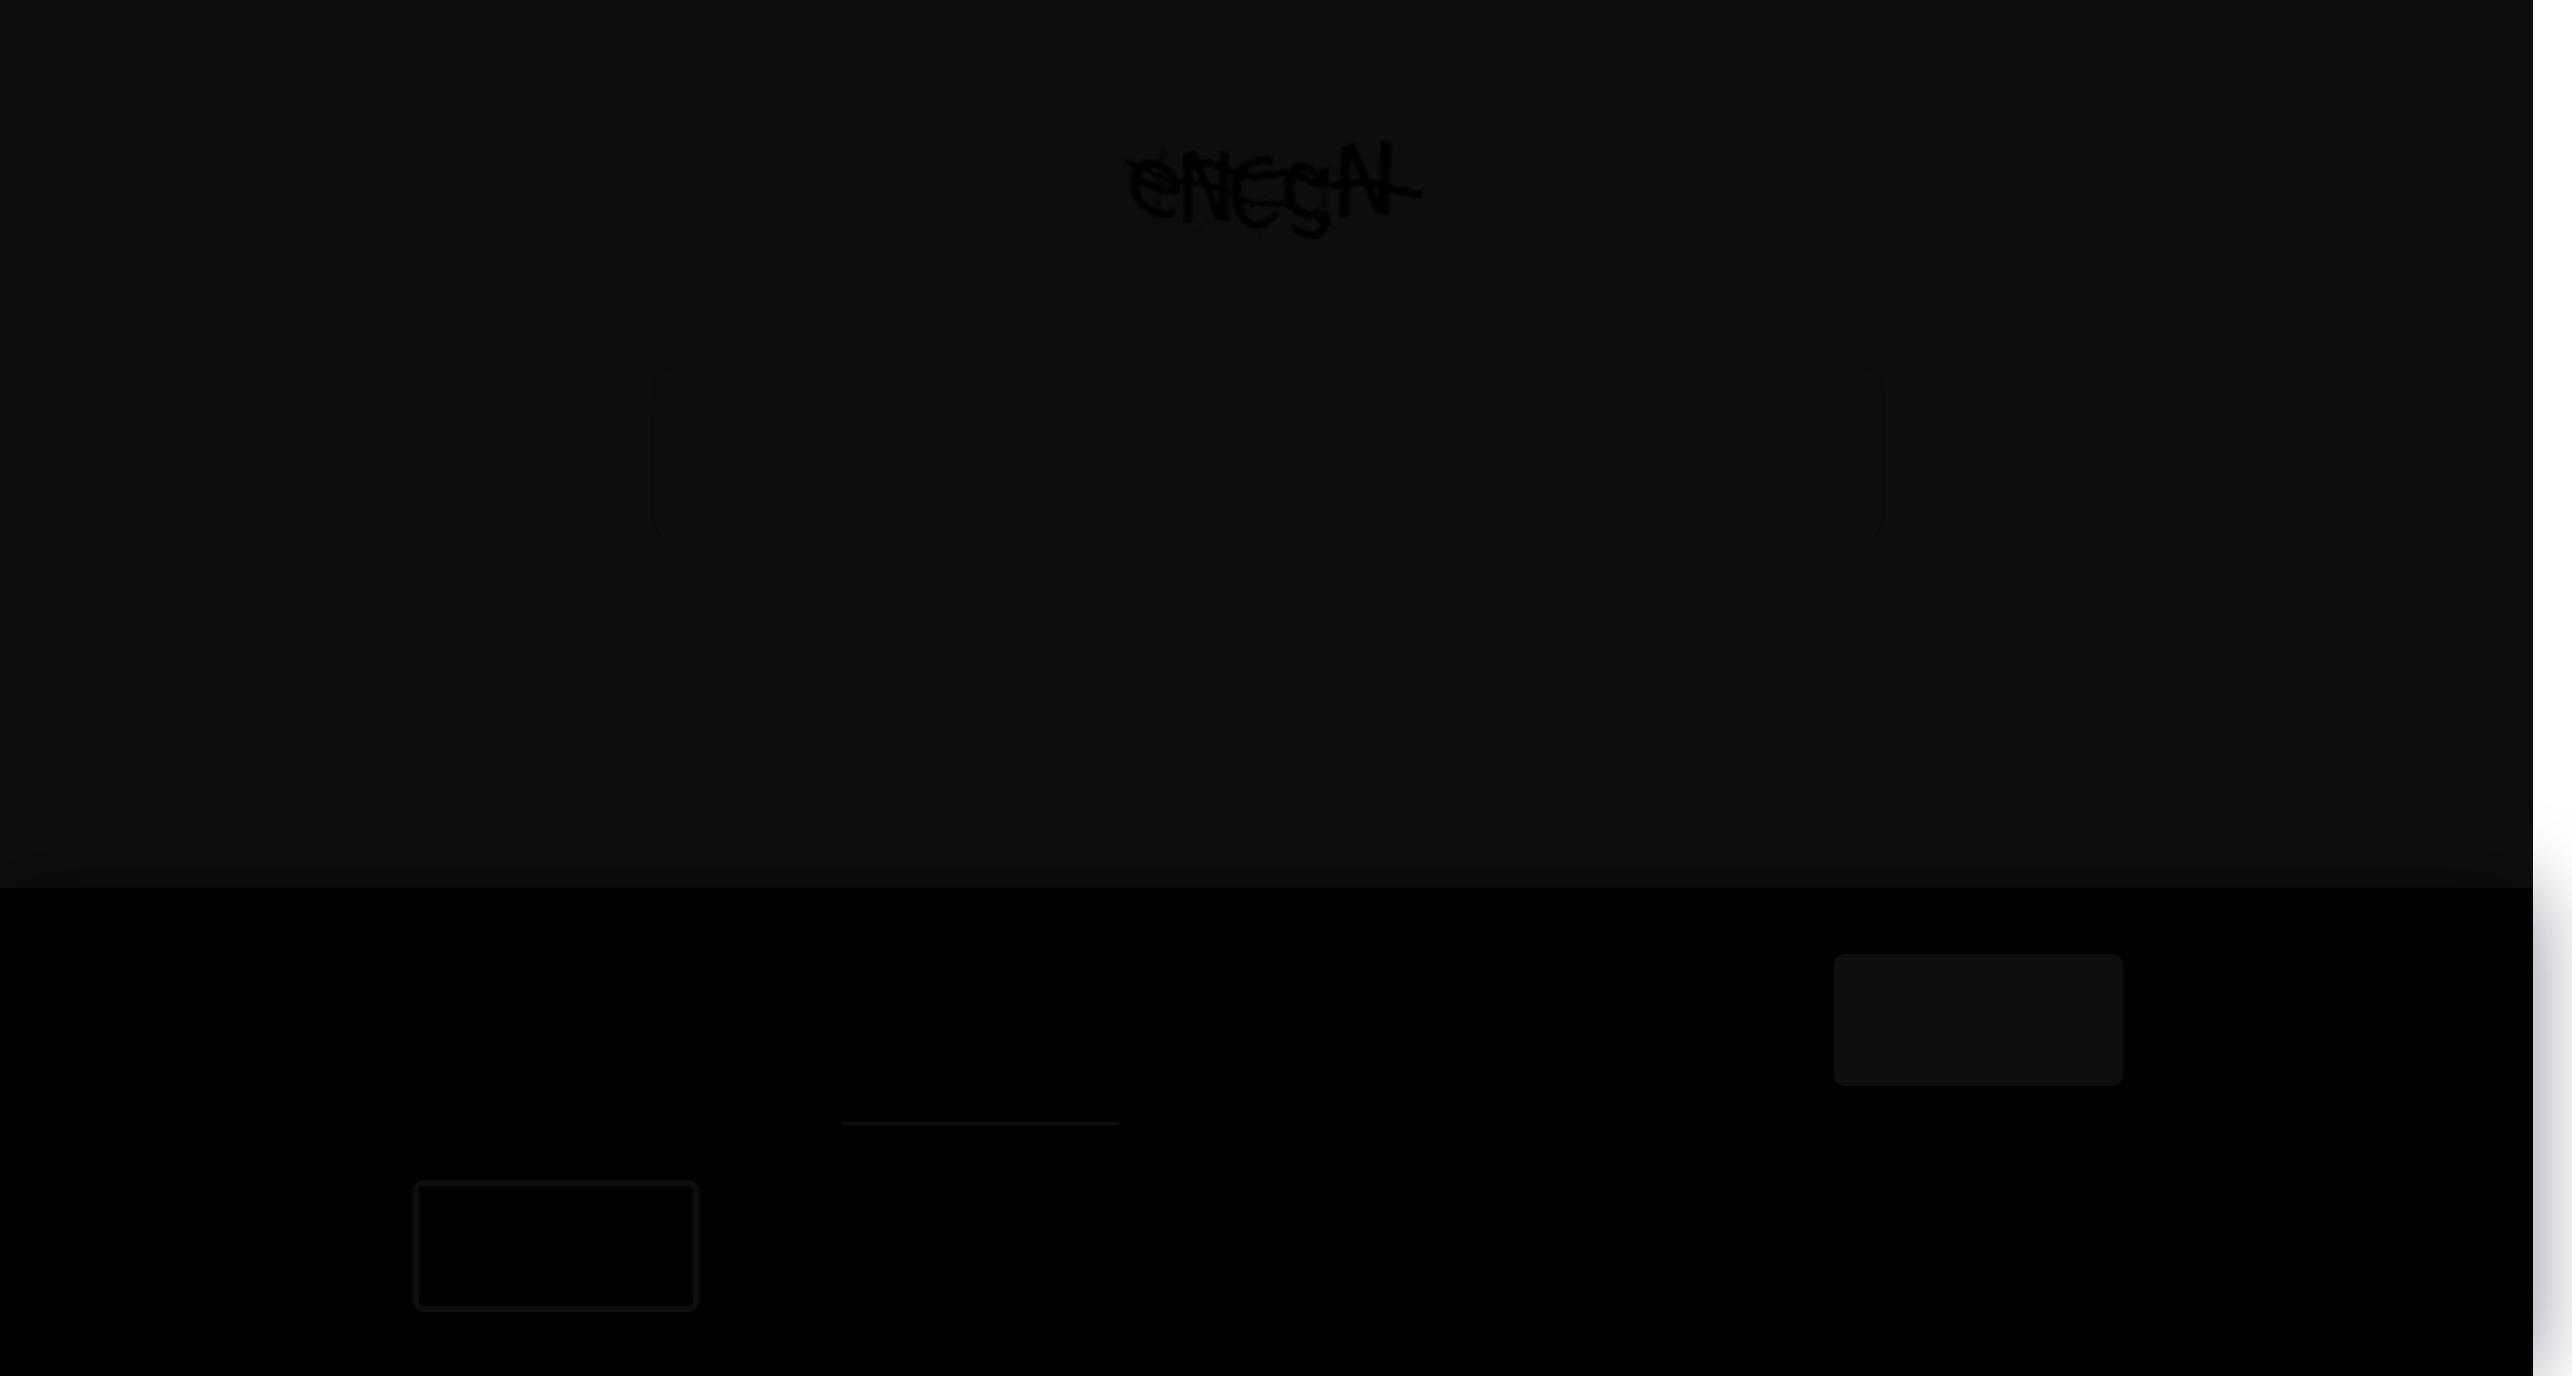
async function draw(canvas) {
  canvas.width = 2572;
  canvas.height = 1376;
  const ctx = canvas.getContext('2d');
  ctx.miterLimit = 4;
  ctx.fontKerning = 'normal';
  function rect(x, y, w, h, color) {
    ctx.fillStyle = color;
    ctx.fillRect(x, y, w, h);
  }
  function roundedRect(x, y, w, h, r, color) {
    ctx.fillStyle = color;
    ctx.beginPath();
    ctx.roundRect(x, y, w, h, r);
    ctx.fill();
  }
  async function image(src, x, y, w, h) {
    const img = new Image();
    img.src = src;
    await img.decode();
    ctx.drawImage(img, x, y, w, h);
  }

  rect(0, 0, 2572, 1376, '#fff');
  await image('assets/img1.png', 1106, 129, 329, 111);
  ctx.beginPath();
  ctx.roundRect(653.5, 367.5, 1229, 173, 20.5);
  ctx.strokeStyle = '#dadada';
  ctx.lineWidth = 3;
  ctx.stroke();
  await image('assets/img2.png', 324, 183, 1121, 705);
  ctx.fillStyle = '#1b193980';
  ctx.filter = 'blur(41px)';
  ctx.beginPath();
  ctx.rect(0, 888, 2533, 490);
  ctx.fill();
  ctx.filter = 'none';
  rect(0, 888, 2533, 488, '#1a1937');
  roundedRect(1834, 954, 289, 132, 11, '#f8fafb');
  rect(842, 1122, 277, 3, '#f8fafb');
  ctx.beginPath();
  ctx.roundRect(416, 1183, 280, 126, 8);
  ctx.strokeStyle = '#f8fafb';
  ctx.lineWidth = 6;
  ctx.stroke();
  rect(0, 0, 2533, 1376, '#000000f2');
}

draw(document.querySelector('canvas'));
